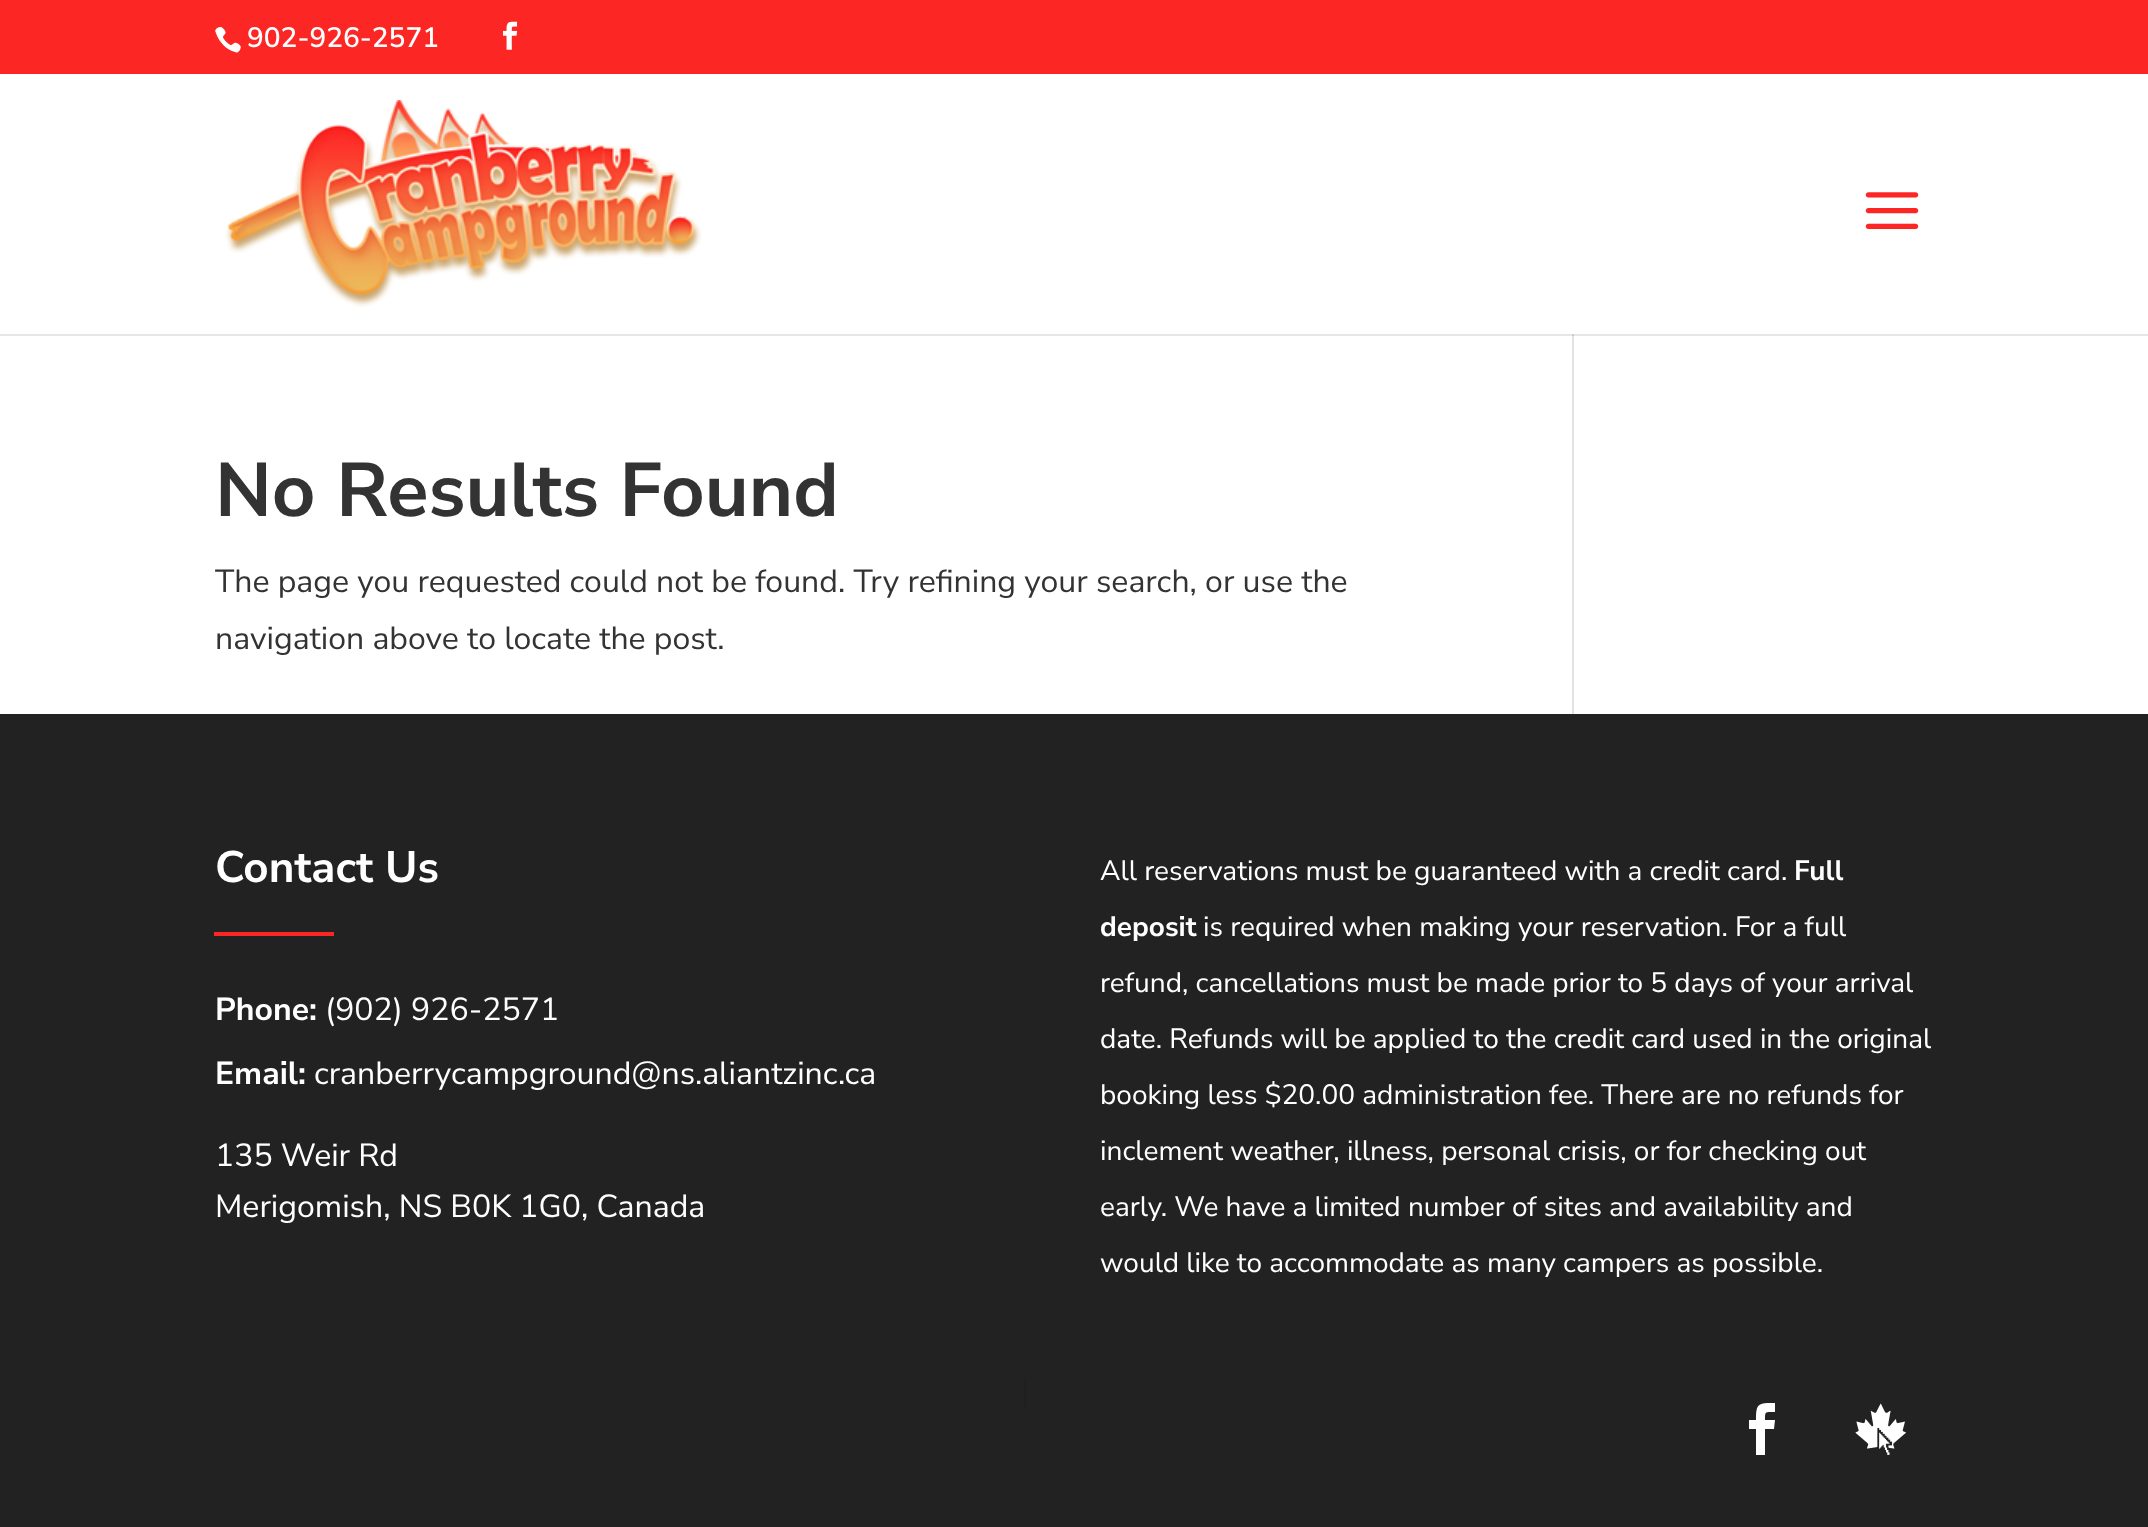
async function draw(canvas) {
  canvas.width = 2148;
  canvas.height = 1527;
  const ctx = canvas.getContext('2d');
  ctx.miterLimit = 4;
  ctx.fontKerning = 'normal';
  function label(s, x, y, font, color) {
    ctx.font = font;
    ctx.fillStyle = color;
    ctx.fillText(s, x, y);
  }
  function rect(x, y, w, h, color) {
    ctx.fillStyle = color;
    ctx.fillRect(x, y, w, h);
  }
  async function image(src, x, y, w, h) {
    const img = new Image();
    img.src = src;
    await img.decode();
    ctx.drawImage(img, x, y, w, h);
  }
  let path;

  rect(0, 0, 2148, 1527, '#fff');
  rect(0, 334, 2148, 2, '#e6e6e6');
  rect(0, 0, 2148, 74, '#fc2724');
  await image('assets/img1.png', 215, 26, 26, 27);
  label('902-926-2571', 247, 47, '600 28px Nunito Sans', '#fff');
  await image('assets/img2.png', 503, 21, 15, 29);
  await image('assets/img3.png', 225, 100, 477, 207);
  await image('assets/img4.png', 1865, 192, 54, 37);
  label('No Results Found', 215, 516, 'bold 76px Nunito Sans', '#333');
  label('The page you requested could not be found. Try refining your search, or use the', 215, 592, '32px Nunito Sans', '#333');
  label('navigation above to locate the post.', 215, 649, '32px Nunito Sans', '#333');
  rect(1572, 334, 2, 380, '#e2e2e2');
  rect(1572, 334, 2, 2, '#cbcbcb');
  rect(0, 714, 2148, 813, '#222');
  label('Contact Us', 215, 882, 'bold 44px Nunito Sans', '#fff');
  rect(214, 932, 120, 4, '#fc2724');
  label('Phone:', 215, 1020, 'bold 32px Nunito Sans', '#fff');
  label('(902) 926-2571', 325, 1020, '32px Nunito Sans', '#fff');
  label('Email:', 215, 1084, 'bold 32px Nunito Sans', '#fff');
  label('cranberrycampground@ns.aliantzinc.ca', 314, 1084, '32px Nunito Sans', '#fff');
  label('135 Weir Rd', 215, 1166, '32px Nunito Sans', '#fff');
  label('Merigomish, NS B0K 1G0, Canada', 215, 1217, '32px Nunito Sans', '#fff');
  label('All reservations must be guaranteed with a credit card.', 1100, 880, '28px Nunito Sans', '#fff');
  label('Full', 1794, 880, 'bold 28px Nunito Sans', '#fff');
  label('deposit', 1100, 936, 'bold 28px Nunito Sans', '#fff');
  label('is required when making your reservation. For a full', 1203, 936, '28px Nunito Sans', '#fff');
  label('refund, cancellations must be made prior to 5 days of your arrival', 1100, 992, '28px Nunito Sans', '#fff');
  label('date. Refunds will be applied to the credit card used in the original', 1100, 1048, '28px Nunito Sans', '#fff');
  label('booking less $20.00 administration fee. There are no refunds for', 1100, 1104, '28px Nunito Sans', '#fff');
  label('inclement weather, illness, personal crisis, or for checking out', 1100, 1160, '28px Nunito Sans', '#fff');
  label('early. We have a limited number of sites and availability and', 1100, 1216, '28px Nunito Sans', '#fff');
  label('would like to accommodate as many campers as possible.', 1100, 1272, '28px Nunito Sans', '#fff');
  rect(1024, 1378, 2, 30, '#1f1f1f');
  ctx.fillStyle = '#fff';
  path = new Path2D('M1756 1455H1765V1429H1774L1775 1420H1765C1765 1411 1765 1412 1775 1412V1403C1758 1403 1756 1403 1756 1420H1749V1429H1756Z');
  ctx.fill(path);
  await image('assets/img5.png', 1855, 1403, 51, 52);
}

draw(document.querySelector('canvas'));
